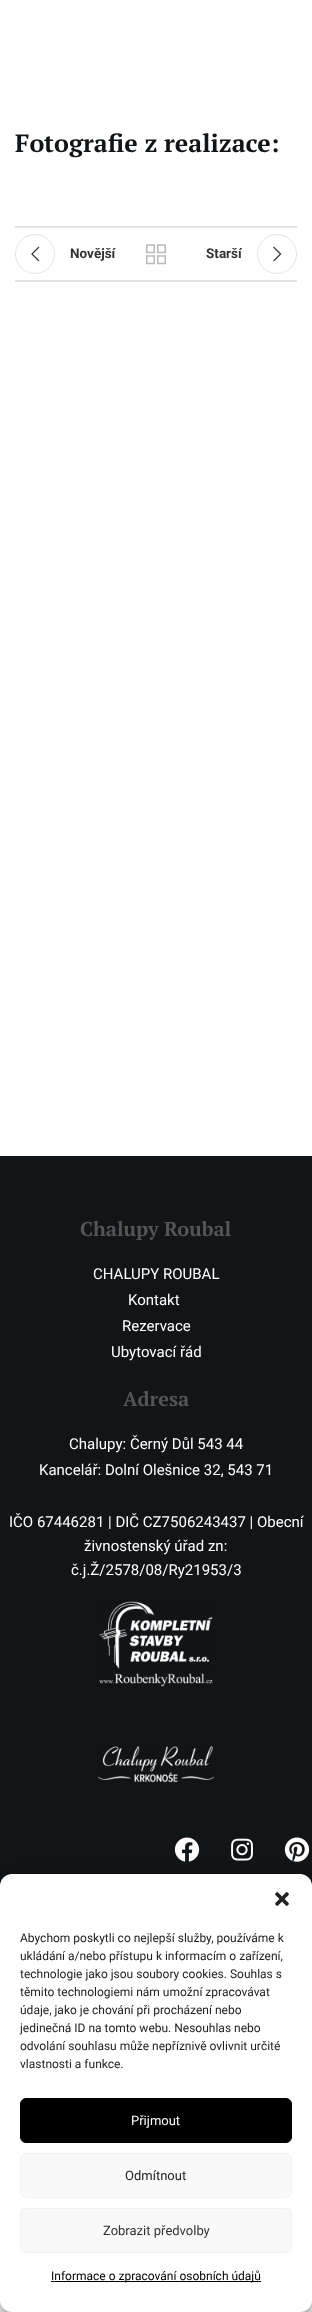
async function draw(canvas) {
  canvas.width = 312;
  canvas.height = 2312;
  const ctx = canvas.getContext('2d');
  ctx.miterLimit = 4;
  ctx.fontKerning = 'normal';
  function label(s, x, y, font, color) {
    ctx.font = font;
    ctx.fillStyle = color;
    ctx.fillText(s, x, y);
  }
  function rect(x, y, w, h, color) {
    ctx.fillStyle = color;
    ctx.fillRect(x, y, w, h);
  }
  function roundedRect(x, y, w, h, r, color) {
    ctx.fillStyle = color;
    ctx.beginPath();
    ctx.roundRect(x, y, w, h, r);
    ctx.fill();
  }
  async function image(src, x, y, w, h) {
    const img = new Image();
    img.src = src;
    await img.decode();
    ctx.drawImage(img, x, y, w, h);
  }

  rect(0, 0, 312, 2312, '#fff');
  label('Fotografie z realizace:', 15, 152, 'bold 25px PT Serif', '#111517');
  rect(15, 226, 282, 2, '#e4e4e4');
  rect(15, 280, 282, 2, '#e4e4e4');
  ctx.beginPath();
  ctx.arc(35, 254, 19.5, 0, 2 * Math.PI);
  ctx.strokeStyle = '#e4e4e4';
  ctx.stroke();
  await image('assets/img1.png', 31, 246, 9, 16);
  label('Novější', 70, 258, 'bold 13.5px Roboto', '#333');
  await image('assets/img2.png', 146, 244, 20, 21);
  label('Starší', 206, 258, 'bold 13.5px Roboto', '#333');
  ctx.beginPath();
  ctx.arc(277, 254, 19.5, 0, 2 * Math.PI);
  ctx.stroke();
  await image('assets/img3.png', 273, 246, 9, 16);
  rect(0, 1156, 312, 730, '#111517');
  label('Chalupy Roubal', 80, 1236, 'bold 20px PT Serif', '#555');
  label('CHALUPY ROUBAL', 93, 1279, '15px Roboto', '#fff');
  label('Kontakt', 128, 1305, '15px Roboto', '#fff');
  label('Rezervace', 122, 1331, '15px Roboto', '#fff');
  label('Ubytovací řád', 111, 1357, '15px Roboto', '#fff');
  label('Adresa', 123, 1406, 'bold 20px PT Serif', '#555');
  label('Chalupy: Černý Důl 543 44', 69, 1449, '15px Roboto', '#fff');
  label('Kancelář: Dolní Olešnice 32, 543 71', 39, 1475, '15px Roboto', '#fff');
  label('IČO 67446281 | DIČ CZ7506243437 | Obecní', 9, 1527, '15px Roboto', '#fff');
  label('živnostenský úřad zn:', 84, 1551, '15px Roboto', '#fff');
  label('č.j.Ž/2578/08/Ry21953/3', 71, 1575, '15px Roboto', '#fff');
  await image('assets/img4.png', 99, 1601, 114, 86);
  await image('assets/img5.png', 97, 1746, 118, 37);
  await image('assets/img6.png', 174, 1837, 26, 25);
  await image('assets/img7.png', 231, 1838, 22, 23);
  await image('assets/img8.png', 284, 1837, 26, 25);
  ctx.fillStyle = '#0000003b';
  ctx.filter = 'blur(3px)';
  ctx.beginPath();
  ctx.roundRect(0, 1880, 312, 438, 12);
  ctx.fill();
  ctx.filter = 'none';
  ctx.fillStyle = '#00000030';
  ctx.filter = 'blur(10px)';
  ctx.beginPath();
  ctx.roundRect(0, 1884, 312, 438, 12);
  ctx.fill();
  ctx.filter = 'none';
  roundedRect(0, 1874, 312, 438, 12, '#fff');
  await image('assets/img9.png', 275, 1892, 14, 14);
  label('Abychom poskytli co nejlepší služby, používáme k', 20, 1942, '12px Roboto', '#222');
  label('ukládání a/nebo přístupu k informacím o zařízení,', 20, 1960, '12px Roboto', '#222');
  label('technologie jako jsou soubory cookies. Souhlas s', 20, 1978, '12px Roboto', '#222');
  label('těmito technologiemi nám umožní zpracovávat', 20, 1996, '12px Roboto', '#222');
  label('údaje, jako je chování při procházení nebo', 20, 2014, '12px Roboto', '#222');
  label('jedinečná ID na tomto webu. Nesouhlas nebo', 20, 2032, '12px Roboto', '#222');
  label('odvolání souhlasu může nepříznivě ovlivnit určité', 20, 2050, '12px Roboto', '#222');
  label('vlastnosti a funkce.', 20, 2068, '12px Roboto', '#222');
  ctx.fillStyle = '#000';
  ctx.beginPath();
  ctx.roundRect(20.5, 2098.5, 271, 44, 5.5);
  ctx.fill();
  ctx.strokeStyle = '#000';
  ctx.stroke();
  label('Přijmout', 131, 2125, '13px Roboto', '#fff');
  ctx.fillStyle = '#f9f9f9';
  ctx.beginPath();
  ctx.roundRect(20.5, 2153.5, 271, 44, 5.5);
  ctx.fill();
  ctx.strokeStyle = '#f2f2f2';
  ctx.stroke();
  label('Odmítnout', 125, 2180, '13px Roboto', '#222');
  ctx.fillStyle = '#f9f9f9';
  ctx.beginPath();
  ctx.roundRect(20.5, 2208.5, 271, 44, 5.5);
  ctx.fill();
  ctx.stroke();
  label('Zobrazit předvolby', 103, 2235, '13px Roboto', '#333');
  rect(51, 2281, 210, 1, '#000');
  label('Informace o zpracování osobních údajů', 51, 2280, '12px Roboto', '#000');
}

draw(document.querySelector('canvas'));
